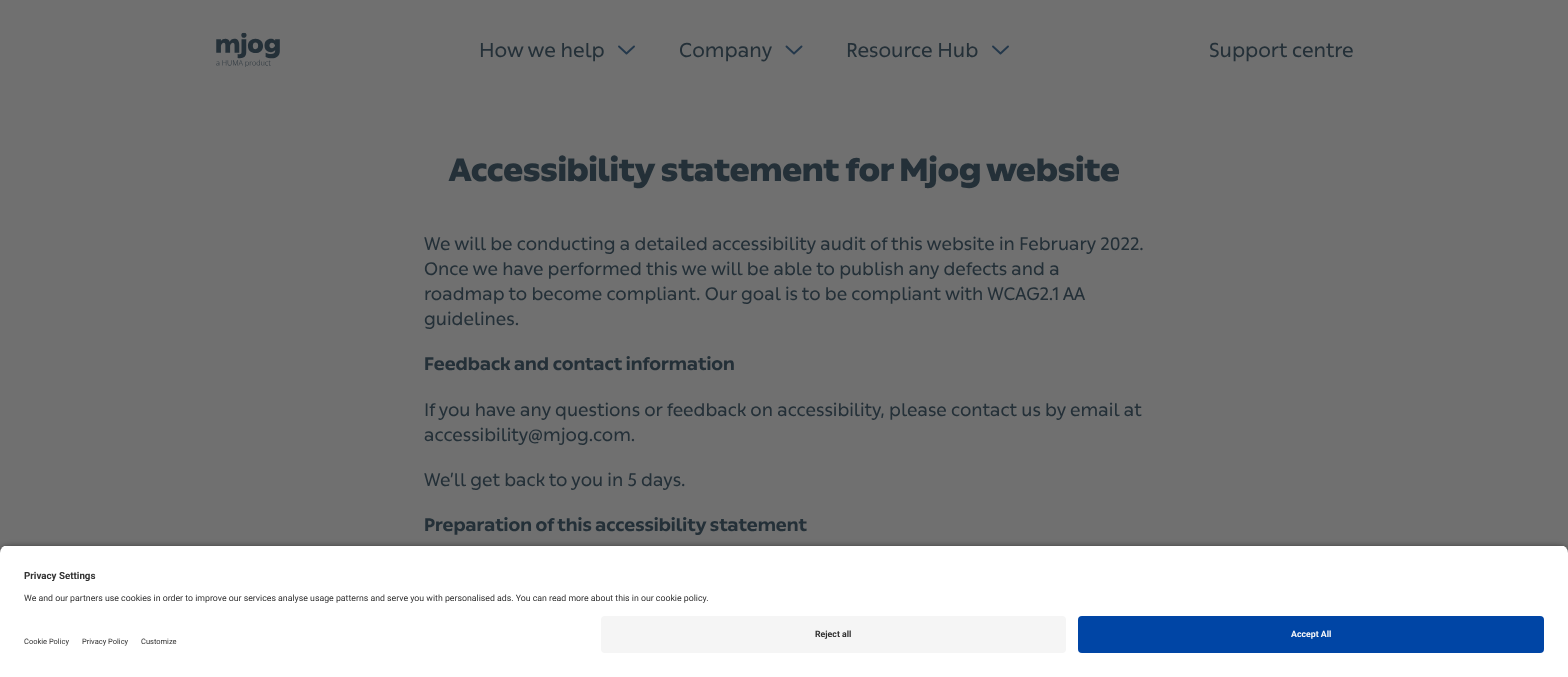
async function draw(canvas) {
  canvas.width = 1568;
  canvas.height = 677;
  const ctx = canvas.getContext('2d');
  ctx.miterLimit = 4;
  ctx.fontKerning = 'normal';
  function label(s, x, y, font, color) {
    ctx.font = font;
    ctx.fillStyle = color;
    ctx.fillText(s, x, y);
  }
  function rect(x, y, w, h, color) {
    ctx.fillStyle = color;
    ctx.fillRect(x, y, w, h);
  }
  function roundedRect(x, y, w, h, r, color) {
    ctx.fillStyle = color;
    ctx.beginPath();
    ctx.roundRect(x, y, w, h, r);
    ctx.fill();
  }
  async function image(src, x, y, w, h) {
    const img = new Image();
    img.src = src;
    await img.decode();
    ctx.drawImage(img, x, y, w, h);
  }
  let path;

  rect(0, 0, 1568, 677, '#707070');
  await image('assets/img1.png', 216, 32, 64, 35);
  label('How we help', 479, 57, '20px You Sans', '#243038');
  path = new Path2D('M634 46.5L626.5 53.5L619 46.5');
  ctx.strokeStyle = '#24384b';
  ctx.lineWidth = 1.9;
  ctx.lineCap = 'round';
  ctx.lineJoin = 'round';
  ctx.stroke(path);
  label('Company', 679, 57, '20px You Sans', '#243038');
  path = new Path2D('M801.5 46.5L794 53.5L786.5 46.5');
  ctx.stroke(path);
  label('Resource Hub', 846, 57, '20px You Sans', '#243038');
  path = new Path2D('M1008 46.5L1000.5 53.5L993 46.5');
  ctx.stroke(path);
  label('Support centre', 1209, 57, '20px You Sans', '#243038');
  label('Accessibility statement for Mjog website', 449, 181, '900 32px You Sans', '#243038');
  label('We will be conducting a detailed accessibility audit of this website in February 2022.', 424, 250, '18px You Sans', '#243038');
  label('Once we have performed this we will be able to publish any defects and a', 424, 275, '18px You Sans', '#243038');
  label('roadmap to become compliant. Our goal is to be compliant with WCAG2.1 AA', 424, 300, '18px You Sans', '#243038');
  label('guidelines.', 424, 325, '18px You Sans', '#243038');
  label('Feedback and contact information', 424, 370, 'bold 18px You Sans', '#243038');
  label('If you have any questions or feedback on accessibility, please contact us by email at', 424, 416, '18px You Sans', '#243038');
  label('accessibility@mjog.com.', 424, 441, '18px You Sans', '#243038');
  label('We’ll get back to you in 5 days.', 424, 486, '18px You Sans', '#243038');
  label('Preparation of this accessibility statement', 424, 531, 'bold 18px You Sans', '#243038');
  ctx.fillStyle = '#000000cc';
  ctx.filter = 'blur(3.5px)';
  ctx.beginPath();
  ctx.roundRect(0, 548, 1568, 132, 8);
  ctx.fill();
  ctx.filter = 'none';
  ctx.save();
  ctx.beginPath();
  ctx.roundRect(0, 545, 1568, 63, [8, 8, 0, 0]);
  ctx.clip();
  rect(0, 546, 1568, 62, '#fff');
  ctx.restore();
  label('Privacy Settings', 24, 579, 'bold 9.75px Roboto', '#303030');
  label('We and our partners use cookies in order to improve our services analyse usage patterns and serve you with personalised ads. You can read more about this in our cookie policy.', 24, 601, '8.75px Roboto', '#303030');
  rect(0, 608, 1568, 69, '#fff');
  roundedRect(601, 616, 465, 37, 4, '#f5f5f5');
  label('Reject all', 815, 637, 'bold 8.75px Roboto', '#303030');
  roundedRect(1078, 616, 466, 37, 4, '#0045a5');
  label('Accept All', 1291, 637, 'bold 8.75px Roboto', '#fafafa');
  label('Cookie Policy', 24, 644, '7.5px Roboto', '#303030');
  label('Privacy Policy', 82, 644, '7.5px Roboto', '#303030');
  label('Customize', 141, 644, '7.5px Roboto', '#303030');
}

draw(document.querySelector('canvas'));
